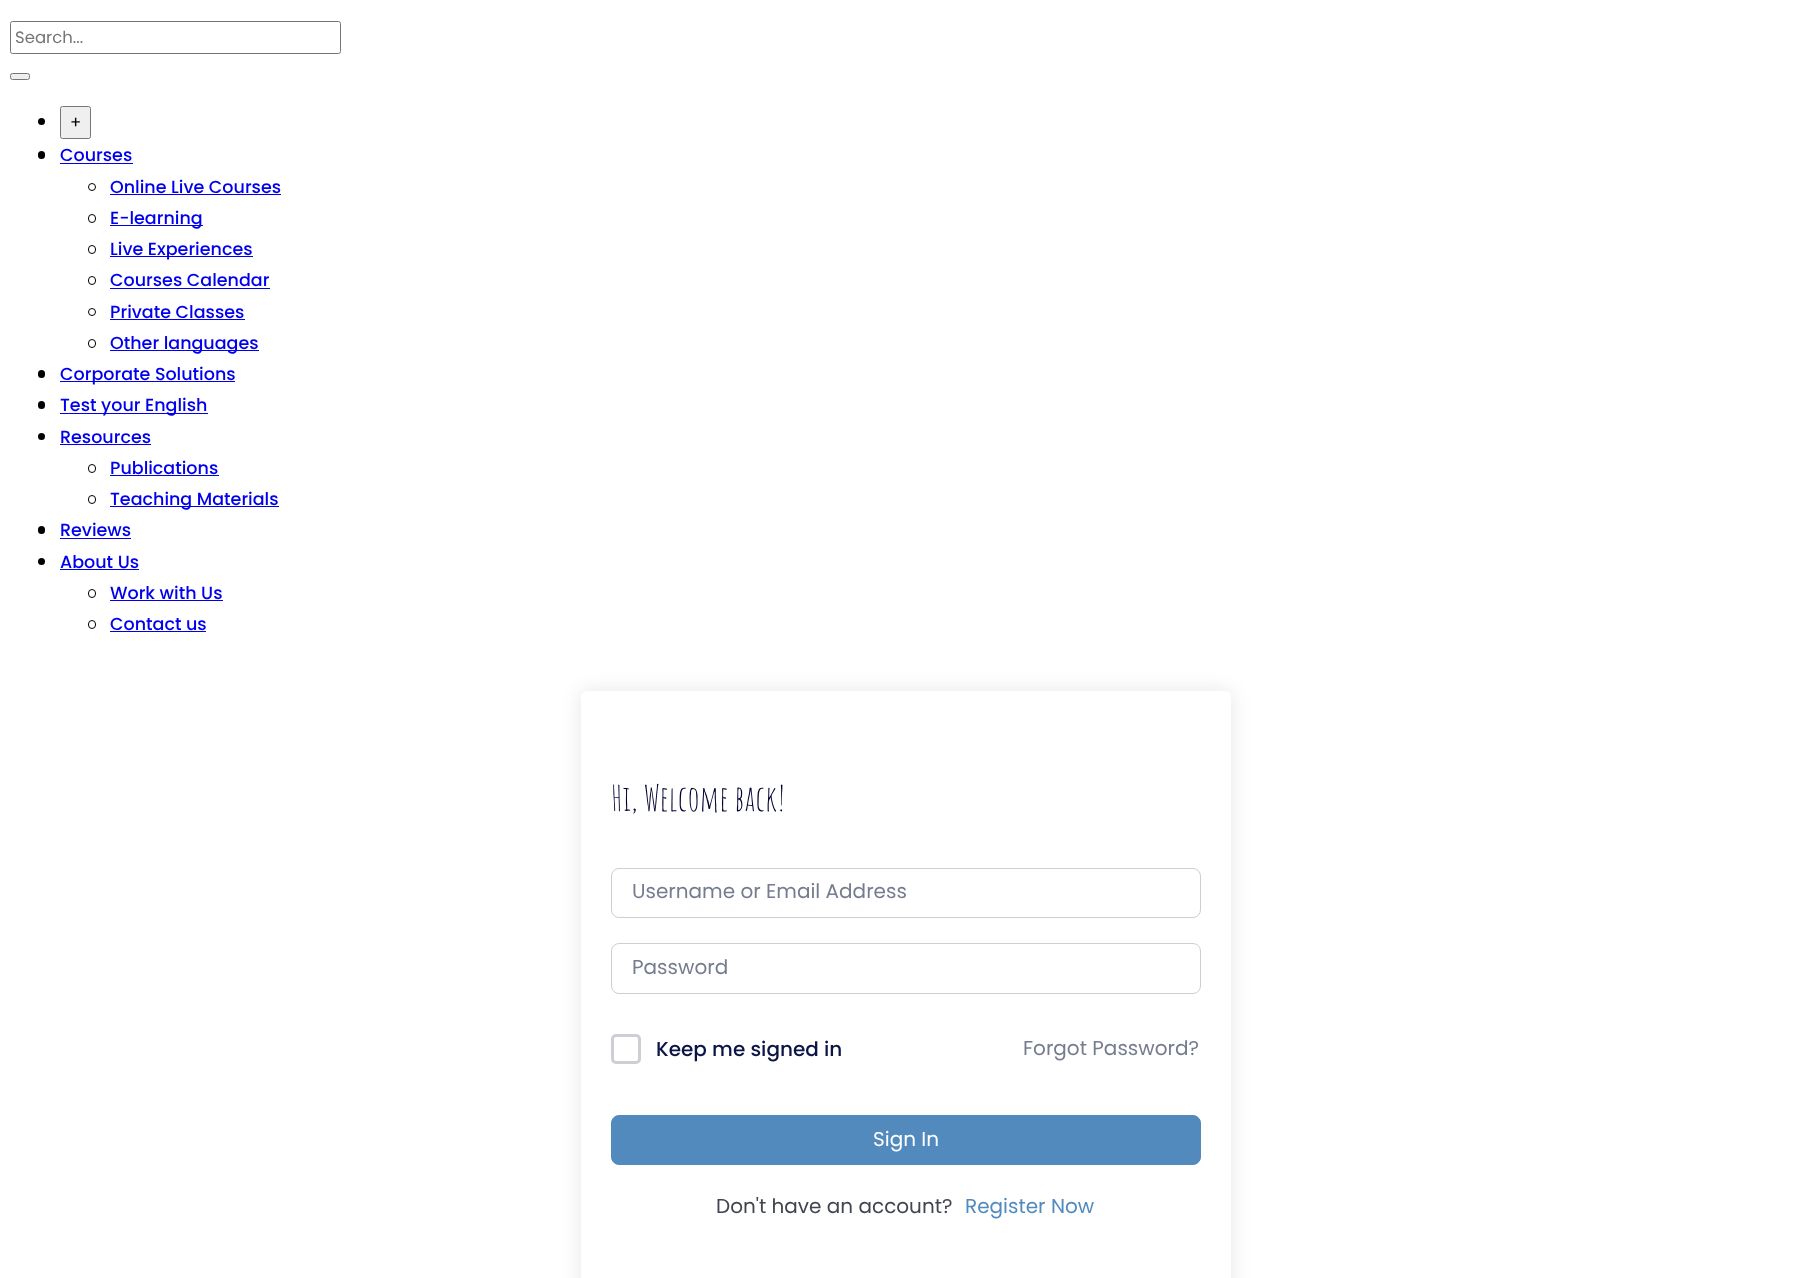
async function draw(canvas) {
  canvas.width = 1811;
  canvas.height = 1278;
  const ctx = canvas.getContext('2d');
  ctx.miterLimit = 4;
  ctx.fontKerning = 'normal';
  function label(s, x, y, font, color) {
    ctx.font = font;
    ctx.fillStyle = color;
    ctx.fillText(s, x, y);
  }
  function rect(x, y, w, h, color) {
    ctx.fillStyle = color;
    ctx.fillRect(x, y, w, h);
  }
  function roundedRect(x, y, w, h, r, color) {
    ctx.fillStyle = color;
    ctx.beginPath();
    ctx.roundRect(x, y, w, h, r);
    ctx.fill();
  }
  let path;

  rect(0, 0, 1811, 1278, '#fff');
  ctx.beginPath();
  ctx.roundRect(10.5, 21.5, 330, 32, 2);
  ctx.strokeStyle = '#767676';
  ctx.stroke();
  label('Search...', 15, 43, '16.5px Poppins', '#757575');
  ctx.fillStyle = '#efefef';
  ctx.beginPath();
  ctx.roundRect(10.5, 73.5, 19, 6, 2);
  ctx.fill();
  ctx.stroke();
  ctx.fillStyle = '#000';
  ctx.beginPath();
  ctx.arc(41.5, 121.5, 3.5, 0, 2 * Math.PI);
  ctx.fill();
  ctx.fillStyle = '#efefef';
  ctx.beginPath();
  ctx.roundRect(60.5, 106.5, 30, 32, 2);
  ctx.fill();
  ctx.stroke();
  label('+', 70, 128, '16.5px Poppins', '#000');
  roundedRect(38, 151, 7, 8, 3.5, '#000');
  label('Courses', 60, 161, '500 17.5px Poppins', '#00e');
  rect(60, 163, 73, 1, '#00e');
  ctx.beginPath();
  ctx.arc(92, 187, 3.5, 0, 2 * Math.PI);
  ctx.strokeStyle = '#000';
  ctx.stroke();
  label('Online Live Courses', 110, 193, '500 17.5px Poppins', '#00e');
  rect(110, 194, 171, 1, '#00e');
  ctx.beginPath();
  ctx.roundRect(88.5, 214.5, 7, 8, 3.5);
  ctx.stroke();
  rect(110, 225, 93, 1, '#00e');
  label('E-learning', 110, 224, '500 17.5px Poppins', '#00e');
  ctx.beginPath();
  ctx.roundRect(88.5, 245.5, 7, 8, 3.5);
  ctx.stroke();
  rect(110, 256, 143, 1, '#00e');
  label('Live Experiences', 110, 255, '500 17.5px Poppins', '#00e');
  ctx.beginPath();
  ctx.roundRect(88.5, 276.5, 7, 8, 3.5);
  ctx.stroke();
  label('Courses Calendar', 110, 286, '500 17.5px Poppins', '#00e');
  rect(110, 288, 160, 1, '#00e');
  ctx.beginPath();
  ctx.arc(92, 312, 3.5, 0, 2 * Math.PI);
  ctx.stroke();
  label('Private Classes', 110, 318, '500 17.5px Poppins', '#00e');
  rect(110, 319, 135, 1, '#00e');
  ctx.beginPath();
  ctx.roundRect(88.5, 339.5, 7, 8, 3.5);
  ctx.stroke();
  rect(110, 350, 149, 1, '#00e');
  label('Other languages', 110, 349, '500 17.5px Poppins', '#00e');
  roundedRect(38, 370, 7, 8, 3.5, '#000');
  rect(60, 381, 175, 1, '#00e');
  label('Corporate Solutions', 60, 380, '500 17.5px Poppins', '#00e');
  roundedRect(38, 401, 7, 8, 3.5, '#000');
  rect(60, 413, 148, 1, '#00e');
  label('Test your English', 60, 411, '500 17.5px Poppins', '#00e');
  ctx.fillStyle = '#000';
  ctx.beginPath();
  ctx.arc(41.5, 436.5, 3.5, 0, 2 * Math.PI);
  ctx.fill();
  label('Resources', 60, 443, '500 17.5px Poppins', '#00e');
  rect(60, 444, 91, 1, '#00e');
  ctx.beginPath();
  ctx.roundRect(88.5, 464.5, 7, 8, 3.5);
  ctx.stroke();
  label('Publications', 110, 474, '500 17.5px Poppins', '#00e');
  rect(110, 475, 109, 1, '#00e');
  ctx.beginPath();
  ctx.roundRect(88.5, 495.5, 7, 8, 3.5);
  ctx.stroke();
  rect(110, 506, 169, 1, '#00e');
  label('Teaching Materials', 110, 505, '500 17.5px Poppins', '#00e');
  roundedRect(38, 526, 7, 8, 3.5, '#000');
  label('Reviews', 60, 536, '500 17.5px Poppins', '#00e');
  rect(60, 538, 71, 1, '#00e');
  ctx.fillStyle = '#000';
  ctx.beginPath();
  ctx.arc(41.5, 561.5, 3.5, 0, 2 * Math.PI);
  ctx.fill();
  label('About Us', 60, 568, '500 17.5px Poppins', '#00e');
  rect(60, 569, 79, 1, '#00e');
  ctx.beginPath();
  ctx.roundRect(88.5, 589.5, 7, 8, 3.5);
  ctx.stroke();
  label('Work with Us', 110, 599, '500 17.5px Poppins', '#00e');
  rect(110, 600, 113, 1, '#00e');
  ctx.beginPath();
  ctx.roundRect(88.5, 620.5, 7, 8, 3.5);
  ctx.stroke();
  label('Contact us', 110, 630, '500 17.5px Poppins', '#00e');
  rect(110, 631, 96, 1, '#00e');
  ctx.save();
  path = new Path2D('M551 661H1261V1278H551ZM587 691H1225C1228.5 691 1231 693.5 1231 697V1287C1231 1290.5 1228.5 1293 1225 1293H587C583.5 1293 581 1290.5 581 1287V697C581 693.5 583.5 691 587 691Z');
  ctx.clip(path, 'evenodd');
  ctx.fillStyle = '#0000001a';
  ctx.filter = 'blur(9.5px)';
  ctx.beginPath();
  ctx.roundRect(581, 691, 650, 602, 6);
  ctx.fill();
  ctx.filter = 'none';
  ctx.restore();
  label('Hi, Welcome back!', 611, 811, '35px Amatic SC', '#003');
  ctx.beginPath();
  ctx.roundRect(611.5, 868.5, 589, 49, 7.5);
  ctx.strokeStyle = '#cdcfd5';
  ctx.stroke();
  label('Username or Email Address', 632, 898, '20px Poppins', '#757c8e');
  ctx.beginPath();
  ctx.roundRect(611.5, 943.5, 589, 50, 7.5);
  ctx.stroke();
  label('Password', 632, 974, '20px Poppins', '#757c8e');
  ctx.beginPath();
  ctx.roundRect(612.5, 1035.5, 27, 27, 3.5);
  ctx.lineWidth = 3;
  ctx.stroke();
  label('Keep me signed in', 656, 1056, '500 20px Poppins', '#0b1445');
  label('Forgot Password?', 1023, 1055, '20px Poppins', '#757c8e');
  ctx.fillStyle = '#528abd';
  ctx.beginPath();
  ctx.roundRect(611.5, 1115.5, 589, 49, 7.5);
  ctx.fill();
  ctx.strokeStyle = '#528abd';
  ctx.lineWidth = 1;
  ctx.stroke();
  label('Sign In', 873, 1146, '20px Poppins', '#fff');
  label('Don\'t have an account?', 716, 1213, '20px Poppins', '#41454f');
  label('Register Now', 965, 1213, '20px Poppins', '#528abd');
}

draw(document.querySelector('canvas'));
